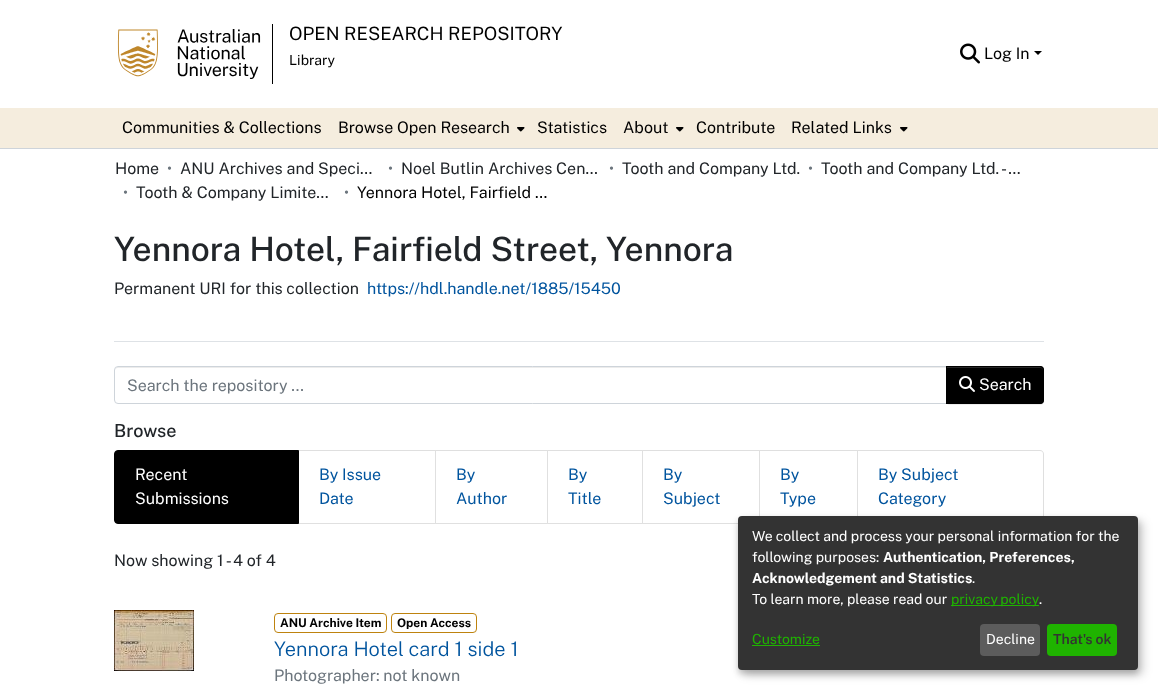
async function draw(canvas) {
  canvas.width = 1158;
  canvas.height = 690;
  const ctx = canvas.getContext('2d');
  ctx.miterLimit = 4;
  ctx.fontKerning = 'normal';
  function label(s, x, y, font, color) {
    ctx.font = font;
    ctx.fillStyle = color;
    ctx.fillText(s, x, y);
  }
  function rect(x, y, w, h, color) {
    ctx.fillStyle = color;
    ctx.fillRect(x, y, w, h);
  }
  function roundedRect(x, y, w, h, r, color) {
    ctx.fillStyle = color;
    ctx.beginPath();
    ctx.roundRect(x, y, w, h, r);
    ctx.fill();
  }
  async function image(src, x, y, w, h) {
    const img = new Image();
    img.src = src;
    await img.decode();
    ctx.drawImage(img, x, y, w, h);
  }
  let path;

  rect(0, 0, 1158, 690, '#fff');
  rect(0, 148, 1158, 1, '#ced4da');
  rect(272, 24, 1, 60, '#000');
  await image('assets/img1.png', 117, 29, 144, 50);
  label('OPEN RESEARCH REPOSITORY', 289, 40, '18.4px Public Sans', '#000');
  label('Library', 289, 65, '14px Public Sans', '#000');
  await image('assets/img2.png', 960, 43, 20, 21);
  label('Log In', 984, 59, '16px Public Sans', '#000');
  path = new Path2D('M1034 51H1042L1038 55Z');
  ctx.fill(path);
  rect(0, 108, 1158, 40, '#f5edde');
  label('Communities & Collections', 122, 133, '16px Public Sans', '#000');
  label('Browse Open Research', 338, 133, '16px Public Sans', '#000');
  await image('assets/img3.png', 517, 127, 8, 5);
  label('Statistics', 537, 133, '16px Public Sans', '#000');
  label('About', 623, 133, '16px Public Sans', '#000');
  await image('assets/img3.png', 676, 127, 8, 5);
  label('Contribute', 696, 133, '16px Public Sans', '#000');
  label('Related Links', 791, 133, '16px Public Sans', '#000');
  await image('assets/img3.png', 900, 127, 8, 5);
  label('Home', 115, 174, '16px Public Sans', '#212529');
  label('•', 167, 174, '16px Public Sans', '#6c757d');
  label('ANU Archives and Speci…', 180, 174, '16px Public Sans', '#212529');
  label('•', 388, 174, '16px Public Sans', '#6c757d');
  label('Noel Butlin Archives Cen…', 401, 174, '16px Public Sans', '#212529');
  label('•', 609, 174, '16px Public Sans', '#6c757d');
  label('Tooth and Company Ltd.', 622, 174, '16px Public Sans', '#212529');
  label('•', 808, 174, '16px Public Sans', '#6c757d');
  label('Tooth and Company Ltd. - …', 821, 174, '16px Public Sans', '#212529');
  label('•', 123, 198, '16px Public Sans', '#6c757d');
  label('Tooth & Company Limite…', 136, 198, '16px Public Sans', '#212529');
  label('•', 344, 198, '16px Public Sans', '#6c757d');
  label('Yennora Hotel, Fairfield …', 357, 198, '16px Public Sans', '#000');
  rect(114, 341, 930, 1, '#dee2e6');
  label('Yennora Hotel, Fairfield Street, Yennora', 114, 261, '500 33.6px Public Sans', '#212529');
  label('Permanent URI for this collection', 114, 294, '16px Public Sans', '#212529');
  label('https://hdl.handle.net/1885/15450', 367, 294, '16px Public Sans', '#00549e');
  ctx.fillStyle = '#ececec';
  path = new Path2D('M118 368H946V367H118C116 367 115 369 115 371C115 369 116 368 118 368Z');
  ctx.fill(path);
  ctx.beginPath();
  ctx.roundRect(114.5, 366.5, 832, 37, [3.5, 0, 0, 3.5]);
  ctx.strokeStyle = '#ced4da';
  ctx.stroke();
  label('Search the repository ...', 127, 391, '16px Public Sans', '#6c757d');
  ctx.fillStyle = '#00000012';
  ctx.filter = 'blur(0.5px)';
  ctx.beginPath();
  ctx.roundRect(946, 367, 98, 38, 4);
  ctx.fill();
  ctx.filter = 'none';
  ctx.fillStyle = '#000';
  ctx.beginPath();
  ctx.roundRect(946, 366, 98, 38, [0, 4, 4, 0]);
  ctx.fill();
  ctx.fillStyle = '#262626';
  path = new Path2D('M947 368H1040C1042 368 1043 369 1043 371V370C1043 368 1042 367 1040 367H947Z');
  ctx.fill(path);
  ctx.beginPath();
  ctx.roundRect(946.5, 366.5, 97, 37, [0, 3.5, 3.5, 0]);
  ctx.strokeStyle = '#000';
  ctx.stroke();
  await image('assets/img4.png', 959, 376, 16, 16);
  label('Search', 979, 390, '16px Public Sans', '#fff');
  label('Browse', 114, 437, '500 18px Public Sans', '#212529');
  ctx.fillStyle = '#000';
  ctx.beginPath();
  ctx.roundRect(114.5, 450.5, 184, 73, [3.5, 0, 0, 3.5]);
  ctx.fill();
  ctx.stroke();
  label('Recent', 135, 480, '16px Public Sans', '#fff');
  label('Submissions', 135, 504, '16px Public Sans', '#fff');
  ctx.fillStyle = '#dfdfdf';
  path = new Path2D('M299 450H436L435 451H299Z');
  ctx.fill(path);
  ctx.fillStyle = '#0000001f';
  path = new Path2D('M436 450V524L435 523V451Z');
  ctx.fill(path);
  path = new Path2D('M436 524H299V523H435Z');
  ctx.fill(path);
  label('By Issue', 319, 480, '16px Public Sans', '#00549e');
  label('Date', 319, 504, '16px Public Sans', '#00549e');
  ctx.fillStyle = '#dfdfdf';
  path = new Path2D('M436 450H548L547 451H436Z');
  ctx.fill(path);
  ctx.fillStyle = '#0000001f';
  path = new Path2D('M548 450V524L547 523V451Z');
  ctx.fill(path);
  path = new Path2D('M548 524H436V523H547Z');
  ctx.fill(path);
  label('By', 456, 480, '16px Public Sans', '#00549e');
  label('Author', 456, 504, '16px Public Sans', '#00549e');
  ctx.fillStyle = '#dfdfdf';
  path = new Path2D('M548 450H643L642 451H548Z');
  ctx.fill(path);
  ctx.fillStyle = '#0000001f';
  path = new Path2D('M643 450V524L642 523V451Z');
  ctx.fill(path);
  path = new Path2D('M643 524H548V523H642Z');
  ctx.fill(path);
  label('By', 568, 480, '16px Public Sans', '#00549e');
  label('Title', 568, 504, '16px Public Sans', '#00549e');
  ctx.fillStyle = '#dfdfdf';
  path = new Path2D('M643 450H760L759 451H643Z');
  ctx.fill(path);
  ctx.fillStyle = '#0000001f';
  path = new Path2D('M760 450V524L759 523V451Z');
  ctx.fill(path);
  path = new Path2D('M760 524H643V523H759Z');
  ctx.fill(path);
  label('By', 663, 480, '16px Public Sans', '#00549e');
  label('Subject', 663, 504, '16px Public Sans', '#00549e');
  ctx.fillStyle = '#dfdfdf';
  path = new Path2D('M760 450H858L857 451H760Z');
  ctx.fill(path);
  ctx.fillStyle = '#0000001f';
  path = new Path2D('M858 450V524L857 523V451Z');
  ctx.fill(path);
  label('By', 780, 480, '16px Public Sans', '#00549e');
  label('Type', 780, 504, '16px Public Sans', '#00549e');
  ctx.fillStyle = '#dfdfdf';
  path = new Path2D('M858 450H1040C1042 450 1044 452 1044 454V520C1044 522 1042 524 1040 524H858ZM858 451H1040C1042 451 1043 452 1043 454V520C1043 522 1042 523 1040 523H858Z');
  ctx.fill(path, 'evenodd');
  label('By Subject', 878, 480, '16px Public Sans', '#00549e');
  label('Category', 878, 504, '16px Public Sans', '#00549e');
  label('Now showing 1 - 4 of 4', 114, 566, '16px Public Sans', '#212529');
  await image('assets/img5.png', 114, 610, 80, 61);
  ctx.beginPath();
  ctx.roundRect(274.5, 613.5, 112, 19, 3.5);
  ctx.strokeStyle = '#be830e';
  ctx.stroke();
  label('ANU Archive Item', 280, 627, 'bold 12px Public Sans', '#000');
  ctx.beginPath();
  ctx.roundRect(391.5, 613.5, 85, 19, 3.5);
  ctx.stroke();
  label('Open Access', 397, 627, 'bold 12px Public Sans', '#000');
  label('Yennora Hotel card 1 side 1', 274, 656, '300 20px Public Sans', '#00549e');
  label('Photographer: not known', 274, 681, '16px Public Sans', '#6c757d');
  ctx.fillStyle = '#00000030';
  ctx.filter = 'blur(5px)';
  ctx.beginPath();
  ctx.roundRect(743, 521, 400, 154, 4);
  ctx.fill();
  ctx.filter = 'none';
  ctx.fillStyle = '#00000033';
  ctx.filter = 'blur(3px)';
  ctx.beginPath();
  ctx.roundRect(738, 520, 400, 154, 4);
  ctx.fill();
  ctx.filter = 'none';
  roundedRect(738, 516, 400, 154, 4, '#333');
  label('We collect and process your personal information for the', 752, 541, '14px Public Sans', '#fff');
  label('following purposes:', 752, 562, '14px Public Sans', '#fff');
  label('Authentication, Preferences,', 883, 562, 'bold 14px Public Sans', '#fff');
  label('Acknowledgement and Statistics', 752, 583, 'bold 14px Public Sans', '#fff');
  label('.', 972, 583, '14px Public Sans', '#fff');
  label('To learn more, please read our', 752, 604, '14px Public Sans', '#fff');
  rect(951, 605, 88, 1, '#1fb300');
  ctx.wordSpacing = '-1px';
  label('privacy policy', 951, 604, '14px Public Sans', '#1fb300');
  ctx.wordSpacing = '0px';
  label('.', 1039, 604, '14px Public Sans', '#fff');
  label('Customize', 752, 644, '14px Public Sans', '#1fb300');
  rect(752, 645, 68, 1, '#1fb300');
  roundedRect(980, 624, 60, 32, 4, '#5c5c5c');
  label('Decline', 986, 644, '14px Public Sans', '#fff');
  roundedRect(1047, 624, 70, 32, 4, '#1fb300');
  label('That\'s ok', 1053, 644, '600 14px Public Sans', '#333');
}

draw(document.querySelector('canvas'));
